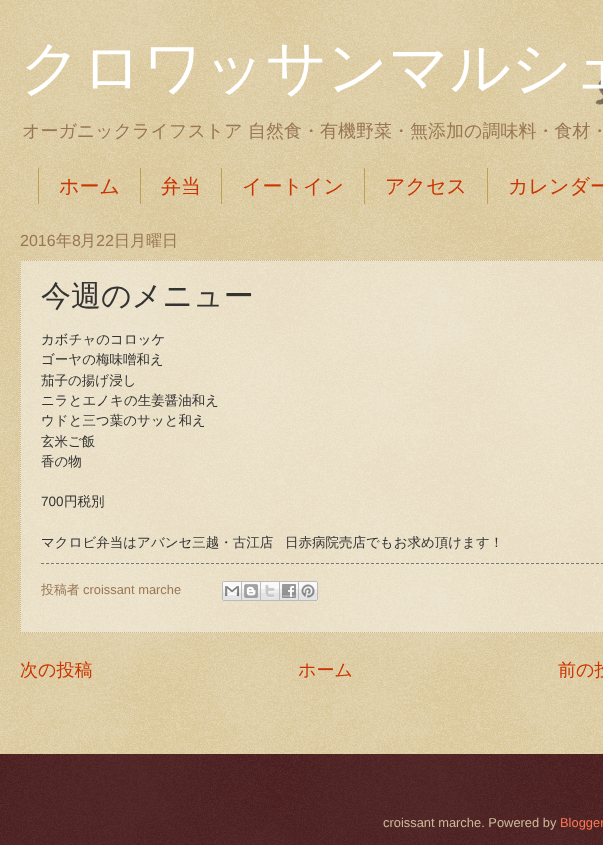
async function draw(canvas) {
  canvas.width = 603;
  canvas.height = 845;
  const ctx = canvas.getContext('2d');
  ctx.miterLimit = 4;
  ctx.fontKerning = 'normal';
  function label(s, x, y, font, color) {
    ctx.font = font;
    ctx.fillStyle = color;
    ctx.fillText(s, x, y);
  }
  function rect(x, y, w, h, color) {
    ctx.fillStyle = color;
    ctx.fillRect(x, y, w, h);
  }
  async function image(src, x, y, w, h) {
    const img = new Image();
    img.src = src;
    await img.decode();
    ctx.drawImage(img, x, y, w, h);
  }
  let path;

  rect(0, 0, 603, 845, '#c0a154');
  await image('assets/img1.png', 0, 0, 603, 754);
  await image('assets/img8.png', 595, 77, 8, 28);
  label('クロワッサンマルシェ', 20, 88, '500 60px WenQuanYi Zen Hei', '#fff');
  label('オーガニックライフストア', 22, 137, '500 18px WenQuanYi Zen Hei', '#975');
  label('自然食・有機野菜・無添加の調味料・食材・', 248, 137, '500 18px WenQuanYi Zen Hei', '#975');
  rect(140, 168, 1, 36, '#c0a154');
  rect(38, 168, 1, 36, '#c0a154');
  label('ホーム', 59, 193, '500 20px WenQuanYi Zen Hei', '#c30');
  rect(221, 168, 1, 36, '#c0a154');
  label('弁当', 161, 193, '500 20px WenQuanYi Zen Hei', '#c30');
  rect(364, 168, 1, 36, '#c0a154');
  label('イートイン', 242, 193, '500 20px WenQuanYi Zen Hei', '#c30');
  rect(487, 168, 1, 36, '#c0a154');
  label('アクセス', 385, 193, '500 20px WenQuanYi Zen Hei', '#c30');
  label('カレンダー', 508, 193, '500 20px WenQuanYi Zen Hei', '#c30');
  label('2016', 20, 246, '16px Liberation Sans', '#975');
  label('年', 56, 246, '500 16px WenQuanYi Zen Hei', '#975');
  label('8', 72, 246, '16px Liberation Sans', '#975');
  label('月', 80, 246, '500 16px WenQuanYi Zen Hei', '#975');
  label('22', 96, 246, '16px Liberation Sans', '#975');
  label('日月曜日', 114, 246, '500 16px WenQuanYi Zen Hei', '#975');
  rect(20, 260, 583, 373, '#ffffff66');
  path = new Path2D('M20 260.5H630');
  ctx.strokeStyle = '#cb9';
  ctx.setLineDash([1, 1]);
  ctx.stroke(path);
  path = new Path2D('M20 632.5H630');
  ctx.stroke(path);
  path = new Path2D('M20.5 260V633');
  ctx.stroke(path);
  label('今週のメニュー', 41, 306, '500 30px WenQuanYi Zen Hei', '#333');
  label('カボチャのコロッケ', 41, 344, '500 13.5px WenQuanYi Zen Hei', '#333');
  label('ゴーヤの梅味噌和え', 41, 364, '500 13.5px WenQuanYi Zen Hei', '#333');
  label('茄子の揚げ浸し', 41, 385, '500 13.5px WenQuanYi Zen Hei', '#333');
  label('ニラとエノキの生姜醤油和え', 41, 405, '500 13.5px WenQuanYi Zen Hei', '#333');
  label('ウドと三つ葉のサッと和え', 41, 425, '500 13.5px WenQuanYi Zen Hei', '#333');
  label('玄米ご飯', 41, 446, '500 13.5px WenQuanYi Zen Hei', '#333');
  label('香の物', 41, 466, '500 13.5px WenQuanYi Zen Hei', '#333');
  label('700', 41, 506, '13.5px Liberation Sans', '#333');
  label('円税別', 64, 506, '500 13.5px WenQuanYi Zen Hei', '#333');
  label('マクロビ弁当はアバンセ三越・古江店', 41, 547, '500 13.5px WenQuanYi Zen Hei', '#333');
  label('日赤病院売店でもお求め頂けます！', 285, 547, '500 13.5px WenQuanYi Zen Hei', '#333');
  path = new Path2D('M41 563.5H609');
  ctx.strokeStyle = '#777';
  ctx.setLineDash([3, 2]);
  ctx.stroke(path);
  label('投稿者', 41, 594, '500 12.9px WenQuanYi Zen Hei', '#975');
  label('croissant marche', 83, 594, '12.9px Liberation Sans', '#975');
  await image('assets/img2.png', 222, 581, 20, 20);
  await image('assets/img3.png', 242, 581, 19, 20);
  await image('assets/img4.png', 261, 581, 19, 20);
  await image('assets/img5.png', 280, 581, 19, 20);
  await image('assets/img6.png', 299, 581, 19, 20);
  label('次の投稿', 20, 676, '500 18px WenQuanYi Zen Hei', '#c30');
  label('ホーム', 298, 676, '500 18px WenQuanYi Zen Hei', '#c30');
  label('前の投', 558, 676, '500 18px WenQuanYi Zen Hei', '#c30');
  rect(0, 754, 603, 91, '#300');
  await image('assets/img7.png', 0, 754, 603, 91);
  label('croissant marche. Powered by', 383, 827, '12.9px Liberation Sans', '#cb9');
  label('Blogger', 560, 827, '12.9px Liberation Sans', '#f75');
}

draw(document.querySelector('canvas'));
